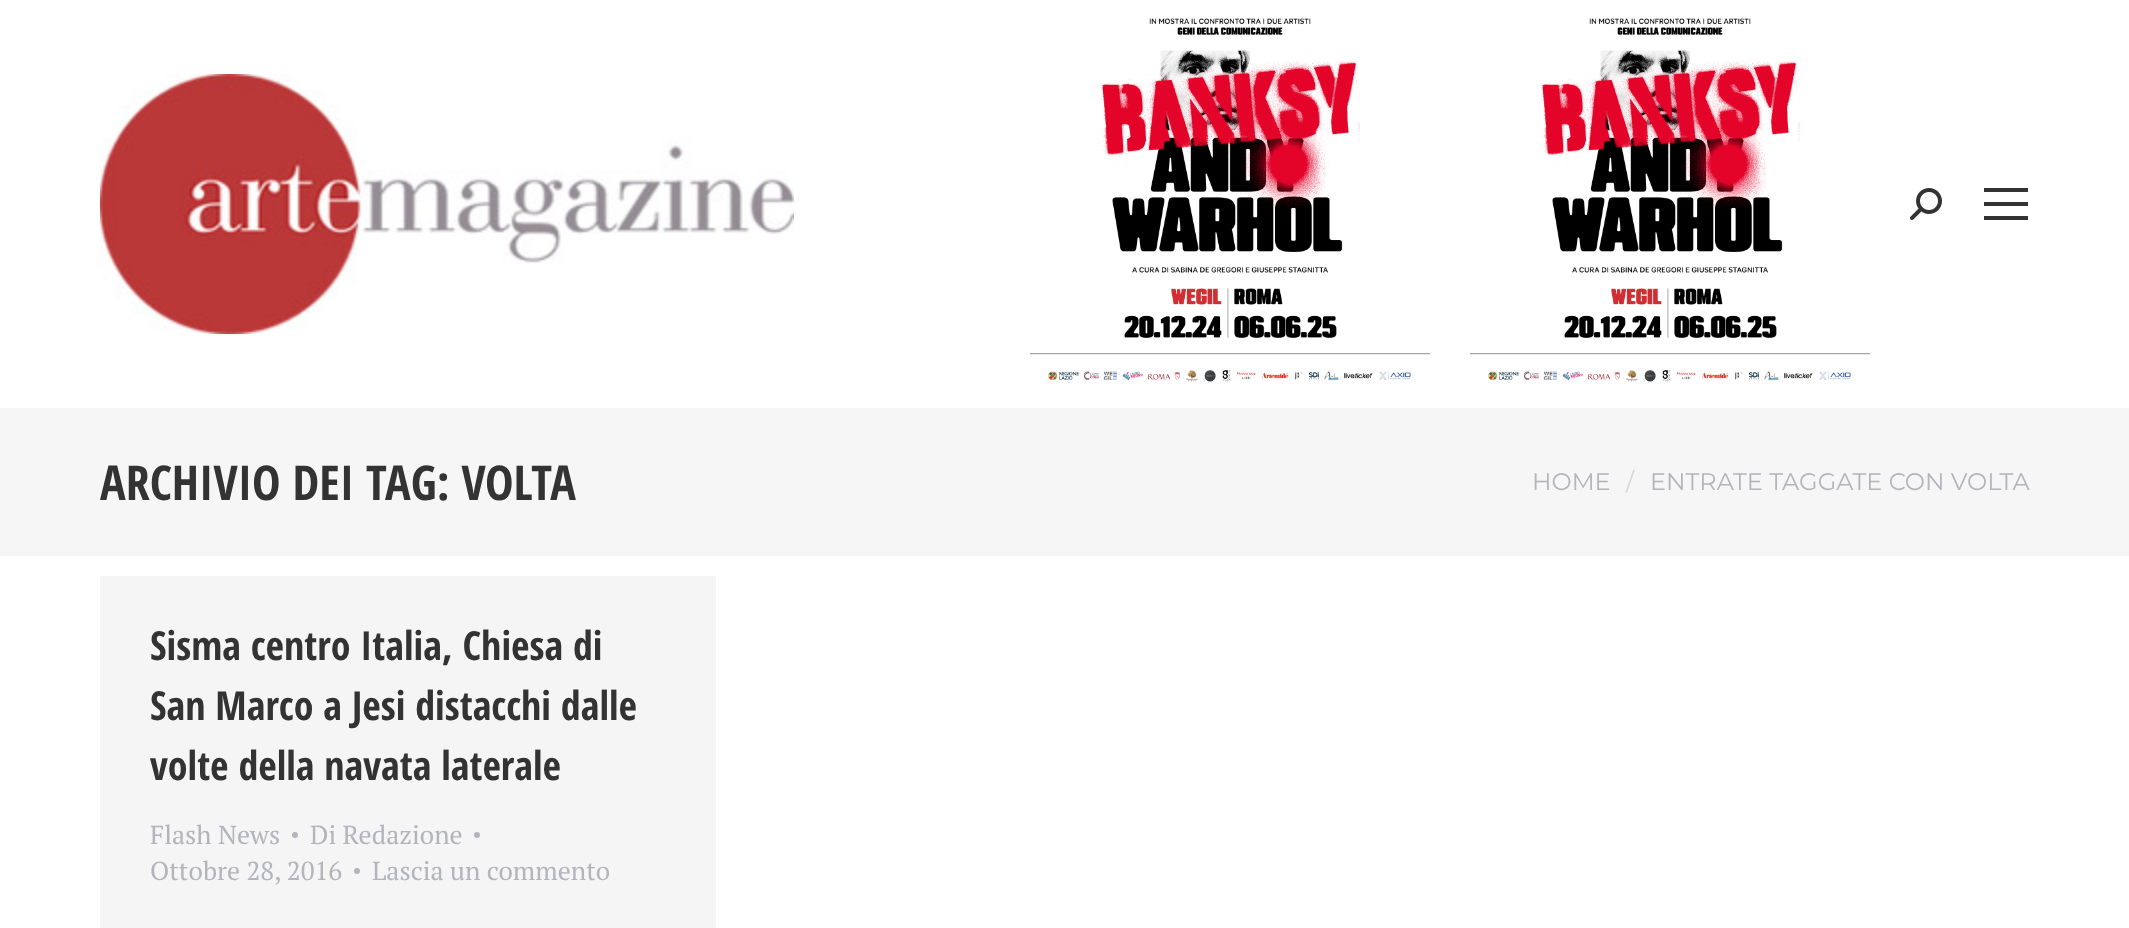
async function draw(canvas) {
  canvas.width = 2129;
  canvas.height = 928;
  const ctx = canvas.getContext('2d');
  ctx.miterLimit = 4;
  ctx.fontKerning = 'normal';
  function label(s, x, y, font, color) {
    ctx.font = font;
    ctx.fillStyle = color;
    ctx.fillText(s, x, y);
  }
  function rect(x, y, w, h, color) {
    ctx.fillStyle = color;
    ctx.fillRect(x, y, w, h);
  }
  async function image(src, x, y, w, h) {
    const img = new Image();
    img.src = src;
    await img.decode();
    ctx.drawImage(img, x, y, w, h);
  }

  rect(0, 0, 2129, 928, '#fff');
  await image('assets/img1.png', 100, 74, 694, 260);
  await image('assets/img2.png', 1030, 18, 400, 364);
  await image('assets/img2.png', 1470, 18, 400, 364);
  await image('assets/img3.png', 1910, 188, 32, 32);
  rect(1984, 188, 44, 4, '#333');
  rect(1984, 202, 44, 4, '#333');
  rect(1984, 216, 44, 4, '#333');
  rect(0, 408, 2129, 148, '#f6f6f6');
  label('ARCHIVIO DEI TAG: VOLTA', 100, 500, 'bold 48px Open Sans Condensed', '#333');
  label('HOME', 1532, 490, '24px Montserrat', '#b4b5bb');
  label('/', 1626, 490, '24px Montserrat', '#d5d6d9');
  label('ENTRATE TAGGATE CON VOLTA', 1650, 490, '24px Montserrat', '#b4b5bb');
  rect(100, 576, 616, 352, '#f5f5f5');
  label('Sisma centro Italia, Chiesa di', 150, 660, 'bold 40px Open Sans Condensed', '#333');
  label('San Marco a Jesi distacchi dalle', 150, 720, 'bold 40px Open Sans Condensed', '#333');
  label('volte della navata laterale', 150, 780, 'bold 40px Open Sans Condensed', '#333');
  label('Flash News', 150, 844, '26px PT Serif', '#b4b5bb');
  ctx.beginPath();
  ctx.arc(295, 835, 3, 0, 2 * Math.PI);
  ctx.fill();
  label('Di Redazione', 310, 844, '26px PT Serif', '#b4b5bb');
  ctx.beginPath();
  ctx.arc(477, 835, 3, 0, 2 * Math.PI);
  ctx.fill();
  label('Ottobre 28, 2016', 150, 880, '26px PT Serif', '#b4b5bb');
  ctx.beginPath();
  ctx.arc(357, 871, 3, 0, 2 * Math.PI);
  ctx.fill();
  label('Lascia un commento', 372, 880, '26px PT Serif', '#b4b5bb');
}

draw(document.querySelector('canvas'));
